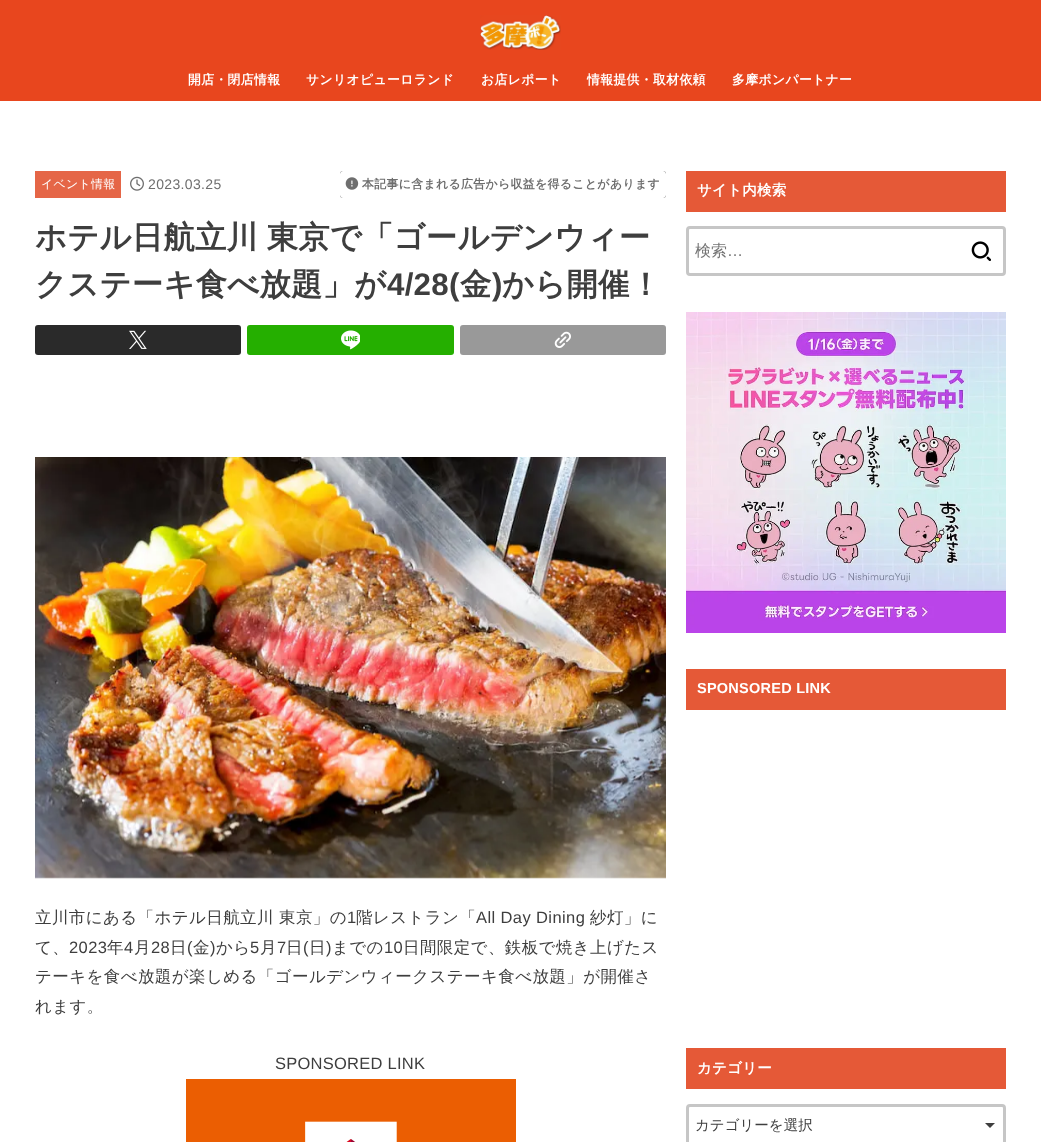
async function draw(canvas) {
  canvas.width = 1041;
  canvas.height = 1142;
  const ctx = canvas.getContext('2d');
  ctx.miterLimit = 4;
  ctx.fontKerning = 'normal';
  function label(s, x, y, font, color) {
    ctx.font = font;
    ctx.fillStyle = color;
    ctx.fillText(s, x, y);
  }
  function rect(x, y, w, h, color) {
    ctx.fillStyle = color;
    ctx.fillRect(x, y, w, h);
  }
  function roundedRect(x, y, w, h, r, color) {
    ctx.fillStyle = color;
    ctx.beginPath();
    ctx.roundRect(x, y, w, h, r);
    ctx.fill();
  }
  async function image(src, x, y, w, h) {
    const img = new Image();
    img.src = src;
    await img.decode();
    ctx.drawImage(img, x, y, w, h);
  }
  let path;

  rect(0, 0, 1041, 1142, '#fff');
  rect(0, 0, 1041, 101, '#e8461e');
  await image('assets/img1.png', 480, 15, 81, 35);
  ctx.letterSpacing = '0.4px';
  label('開店・閉店情報', 188, 84, 'bold 12.8px WenQuanYi Zen Hei', '#fff');
  label('サンリオピューロランド', 306, 84, 'bold 12.8px WenQuanYi Zen Hei', '#fff');
  label('お店レポート', 481, 84, 'bold 12.8px WenQuanYi Zen Hei', '#fff');
  label('情報提供・取材依頼', 587, 84, 'bold 12.8px WenQuanYi Zen Hei', '#fff');
  label('多摩ポンパートナー', 732, 84, 'bold 12.8px WenQuanYi Zen Hei', '#fff');
  rect(35, 171, 86, 27, '#e56647');
  ctx.letterSpacing = '0.35px';
  label('イベント情報', 41, 188, '500 11.9px WenQuanYi Zen Hei', '#fff');
  await image('assets/img2.png', 130, 176, 14, 15);
  label('2023.03.25', 148, 189, '14px Liberation Sans', '#6e6e6e');
  ctx.save();
  path = new Path2D('M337 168H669V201H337ZM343 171H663C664.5 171 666 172.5 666 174V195C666 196.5 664.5 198 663 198H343C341.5 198 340 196.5 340 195V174C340 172.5 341.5 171 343 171Z');
  ctx.clip(path, 'evenodd');
  ctx.filter = 'blur(0.5px)';
  ctx.beginPath();
  ctx.roundRect(340, 171, 326, 27, 3);
  ctx.fill();
  ctx.filter = 'none';
  ctx.restore();
  await image('assets/img3.png', 345, 177, 14, 13);
  label('本記事に含まれる広告から収益を得ることがあります', 362, 188, 'bold 11.9px WenQuanYi Zen Hei', '#6e6e6e');
  ctx.letterSpacing = '0.25px';
  ctx.wordSpacing = '-1px';
  label('ホテル日航立川 東京で「ゴールデンウィー', 35, 248, 'bold 31.3px WenQuanYi Zen Hei', '#3e3e3e');
  ctx.wordSpacing = '0px';
  label('クステーキ食べ放題」が', 35, 295, 'bold 31.3px WenQuanYi Zen Hei', '#3e3e3e');
  label('4/28(', 387, 295, 'bold 31.3px Liberation Sans', '#3e3e3e');
  label('金', 460, 295, 'bold 31.3px WenQuanYi Zen Hei', '#3e3e3e');
  label(')', 492, 295, 'bold 31.3px Liberation Sans', '#3e3e3e');
  label('から開催！', 502, 295, 'bold 31.3px WenQuanYi Zen Hei', '#3e3e3e');
  roundedRect(35, 325, 206, 30, 3, '#2a2a2a');
  await image('assets/img4.png', 129, 330, 18, 19);
  roundedRect(247, 325, 207, 30, 3, '#25af00');
  await image('assets/img5.png', 341, 330, 19, 20);
  roundedRect(460, 325, 206, 30, 3, '#999');
  await image('assets/img6.png', 554, 331, 17, 17);
  await image('assets/img7.png', 35, 457, 631, 422);
  ctx.letterSpacing = '0.4px';
  label('立川市にある「ホテル日航立川', 35, 923, '500 16.5px WenQuanYi Zen Hei', '#3e3e3e');
  label('東京」の', 279, 923, '500 16.5px WenQuanYi Zen Hei', '#3e3e3e');
  label('1', 347, 923, '16.5px Liberation Sans', '#3e3e3e');
  label('階レストラン「', 356, 923, '500 16.5px WenQuanYi Zen Hei', '#3e3e3e');
  label('All Day Dining', 476, 923, '16.5px Liberation Sans', '#3e3e3e');
  label('紗灯」に', 590, 923, '500 16.5px WenQuanYi Zen Hei', '#3e3e3e');
  label('て、', 35, 953, '500 16.5px WenQuanYi Zen Hei', '#3e3e3e');
  label('2023', 69, 953, '16.5px Liberation Sans', '#3e3e3e');
  label('年', 107, 953, '500 16.5px WenQuanYi Zen Hei', '#3e3e3e');
  label('4', 124, 953, '16.5px Liberation Sans', '#3e3e3e');
  label('月', 134, 953, '500 16.5px WenQuanYi Zen Hei', '#3e3e3e');
  label('28', 151, 953, '16.5px Liberation Sans', '#3e3e3e');
  label('日', 170, 953, '500 16.5px WenQuanYi Zen Hei', '#3e3e3e');
  label('(', 187, 953, '16.5px Liberation Sans', '#3e3e3e');
  label('金', 193, 953, '500 16.5px WenQuanYi Zen Hei', '#3e3e3e');
  label(')', 210, 953, '16.5px Liberation Sans', '#3e3e3e');
  label('から', 216, 953, '500 16.5px WenQuanYi Zen Hei', '#3e3e3e');
  label('5', 250, 953, '16.5px Liberation Sans', '#3e3e3e');
  label('月', 260, 953, '500 16.5px WenQuanYi Zen Hei', '#3e3e3e');
  label('7', 277, 953, '16.5px Liberation Sans', '#3e3e3e');
  label('日', 286, 953, '500 16.5px WenQuanYi Zen Hei', '#3e3e3e');
  label('(', 303, 953, '16.5px Liberation Sans', '#3e3e3e');
  label('日', 309, 953, '500 16.5px WenQuanYi Zen Hei', '#3e3e3e');
  label(')', 326, 953, '16.5px Liberation Sans', '#3e3e3e');
  label('までの', 332, 953, '500 16.5px WenQuanYi Zen Hei', '#3e3e3e');
  label('10', 384, 953, '16.5px Liberation Sans', '#3e3e3e');
  label('日間限定で、鉄板で焼き上げたス', 403, 953, '500 16.5px WenQuanYi Zen Hei', '#3e3e3e');
  label('テーキを食べ放題が楽しめる「ゴールデンウィークステーキ食べ放題」が開催さ', 35, 982, '500 16.5px WenQuanYi Zen Hei', '#3e3e3e');
  label('れます。', 35, 1012, '500 16.5px WenQuanYi Zen Hei', '#3e3e3e');
  ctx.letterSpacing = '0.25px';
  label('SPONSORED LINK', 275, 1069, '16.5px Liberation Sans', '#3e3e3e');
  await image('assets/img8.png', 186, 1079, 330, 63);
  rect(686, 171, 320, 41, '#e55937');
  label('サイト内検索', 697, 195, 'bold 14.5px WenQuanYi Zen Hei', '#fff');
  ctx.beginPath();
  ctx.roundRect(687.5, 227.5, 317, 47, 2.5);
  ctx.strokeStyle = '#c6c6c6';
  ctx.lineWidth = 3;
  ctx.stroke();
  ctx.letterSpacing = '0px';
  label('検索', 695, 256, '500 16px WenQuanYi Zen Hei', '#757575');
  label('…', 727, 256, '16px Liberation Sans', '#757575');
  await image('assets/img9.png', 971, 241, 20, 20);
  await image('assets/img10.png', 686, 312, 320, 321);
  rect(686, 669, 320, 41, '#e55937');
  ctx.letterSpacing = '0.25px';
  label('SPONSORED LINK', 697, 693, 'bold 14.5px Liberation Sans', '#fff');
  rect(686, 1048, 320, 41, '#e55937');
  label('カテゴリー', 697, 1073, 'bold 14.5px WenQuanYi Zen Hei', '#fff');
  ctx.fillStyle = '#3e3e3e';
  path = new Path2D('M985 1123H995L990 1128Z');
  ctx.fill(path);
  ctx.beginPath();
  ctx.roundRect(687.5, 1105.5, 317, 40, 2.5);
  ctx.stroke();
  ctx.letterSpacing = '0px';
  label('カテゴリーを選択', 695, 1130, '500 14.5px WenQuanYi Zen Hei', '#3e3e3e');
}

draw(document.querySelector('canvas'));
